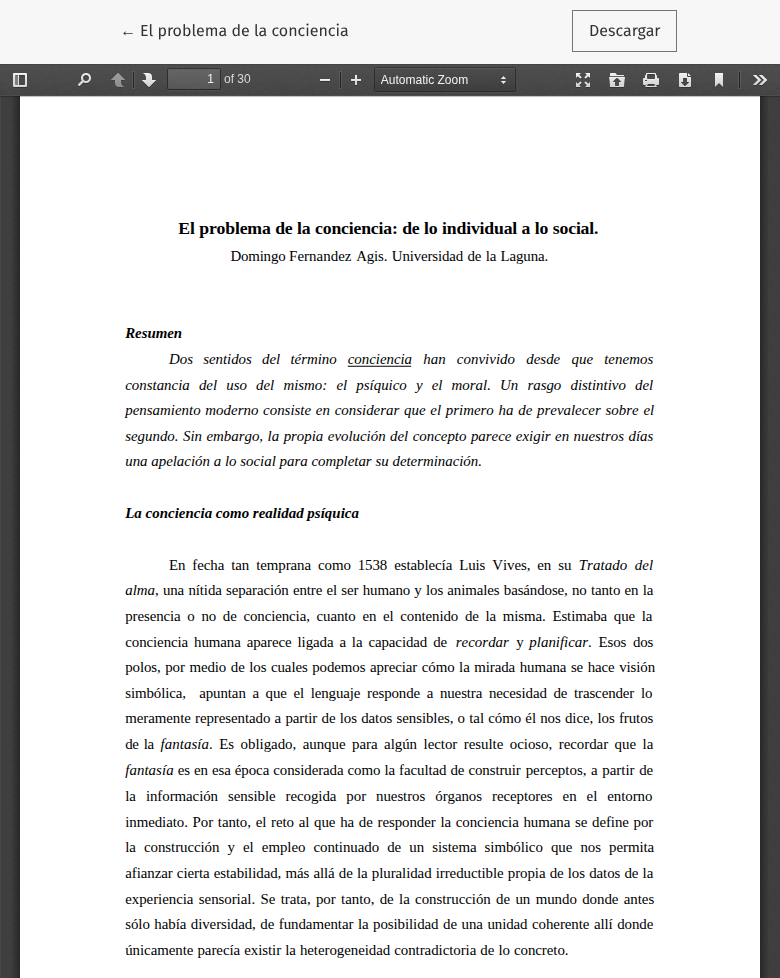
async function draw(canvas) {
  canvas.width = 780;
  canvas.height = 978;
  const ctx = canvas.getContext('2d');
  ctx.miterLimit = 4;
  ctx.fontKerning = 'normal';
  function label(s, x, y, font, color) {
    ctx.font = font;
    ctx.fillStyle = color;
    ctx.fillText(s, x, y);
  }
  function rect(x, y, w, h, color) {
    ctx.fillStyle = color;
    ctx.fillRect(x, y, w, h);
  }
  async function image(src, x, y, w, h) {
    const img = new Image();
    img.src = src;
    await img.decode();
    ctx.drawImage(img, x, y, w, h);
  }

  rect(0, 0, 780, 978, '#f7f7f7');
  label('←', 120, 36, '16px Liberation Sans', '#333');
  label('El problema de la conciencia', 140, 36, '16px Fira Sans', '#333');
  ctx.strokeStyle = '#757575';
  ctx.strokeRect(572.5, 10.5, 104, 41);
  label('Descargar', 589, 36, '16px Fira Sans', '#333');
  await image('assets/img1.png', 0, 64, 780, 914);
}

draw(document.querySelector('canvas'));
